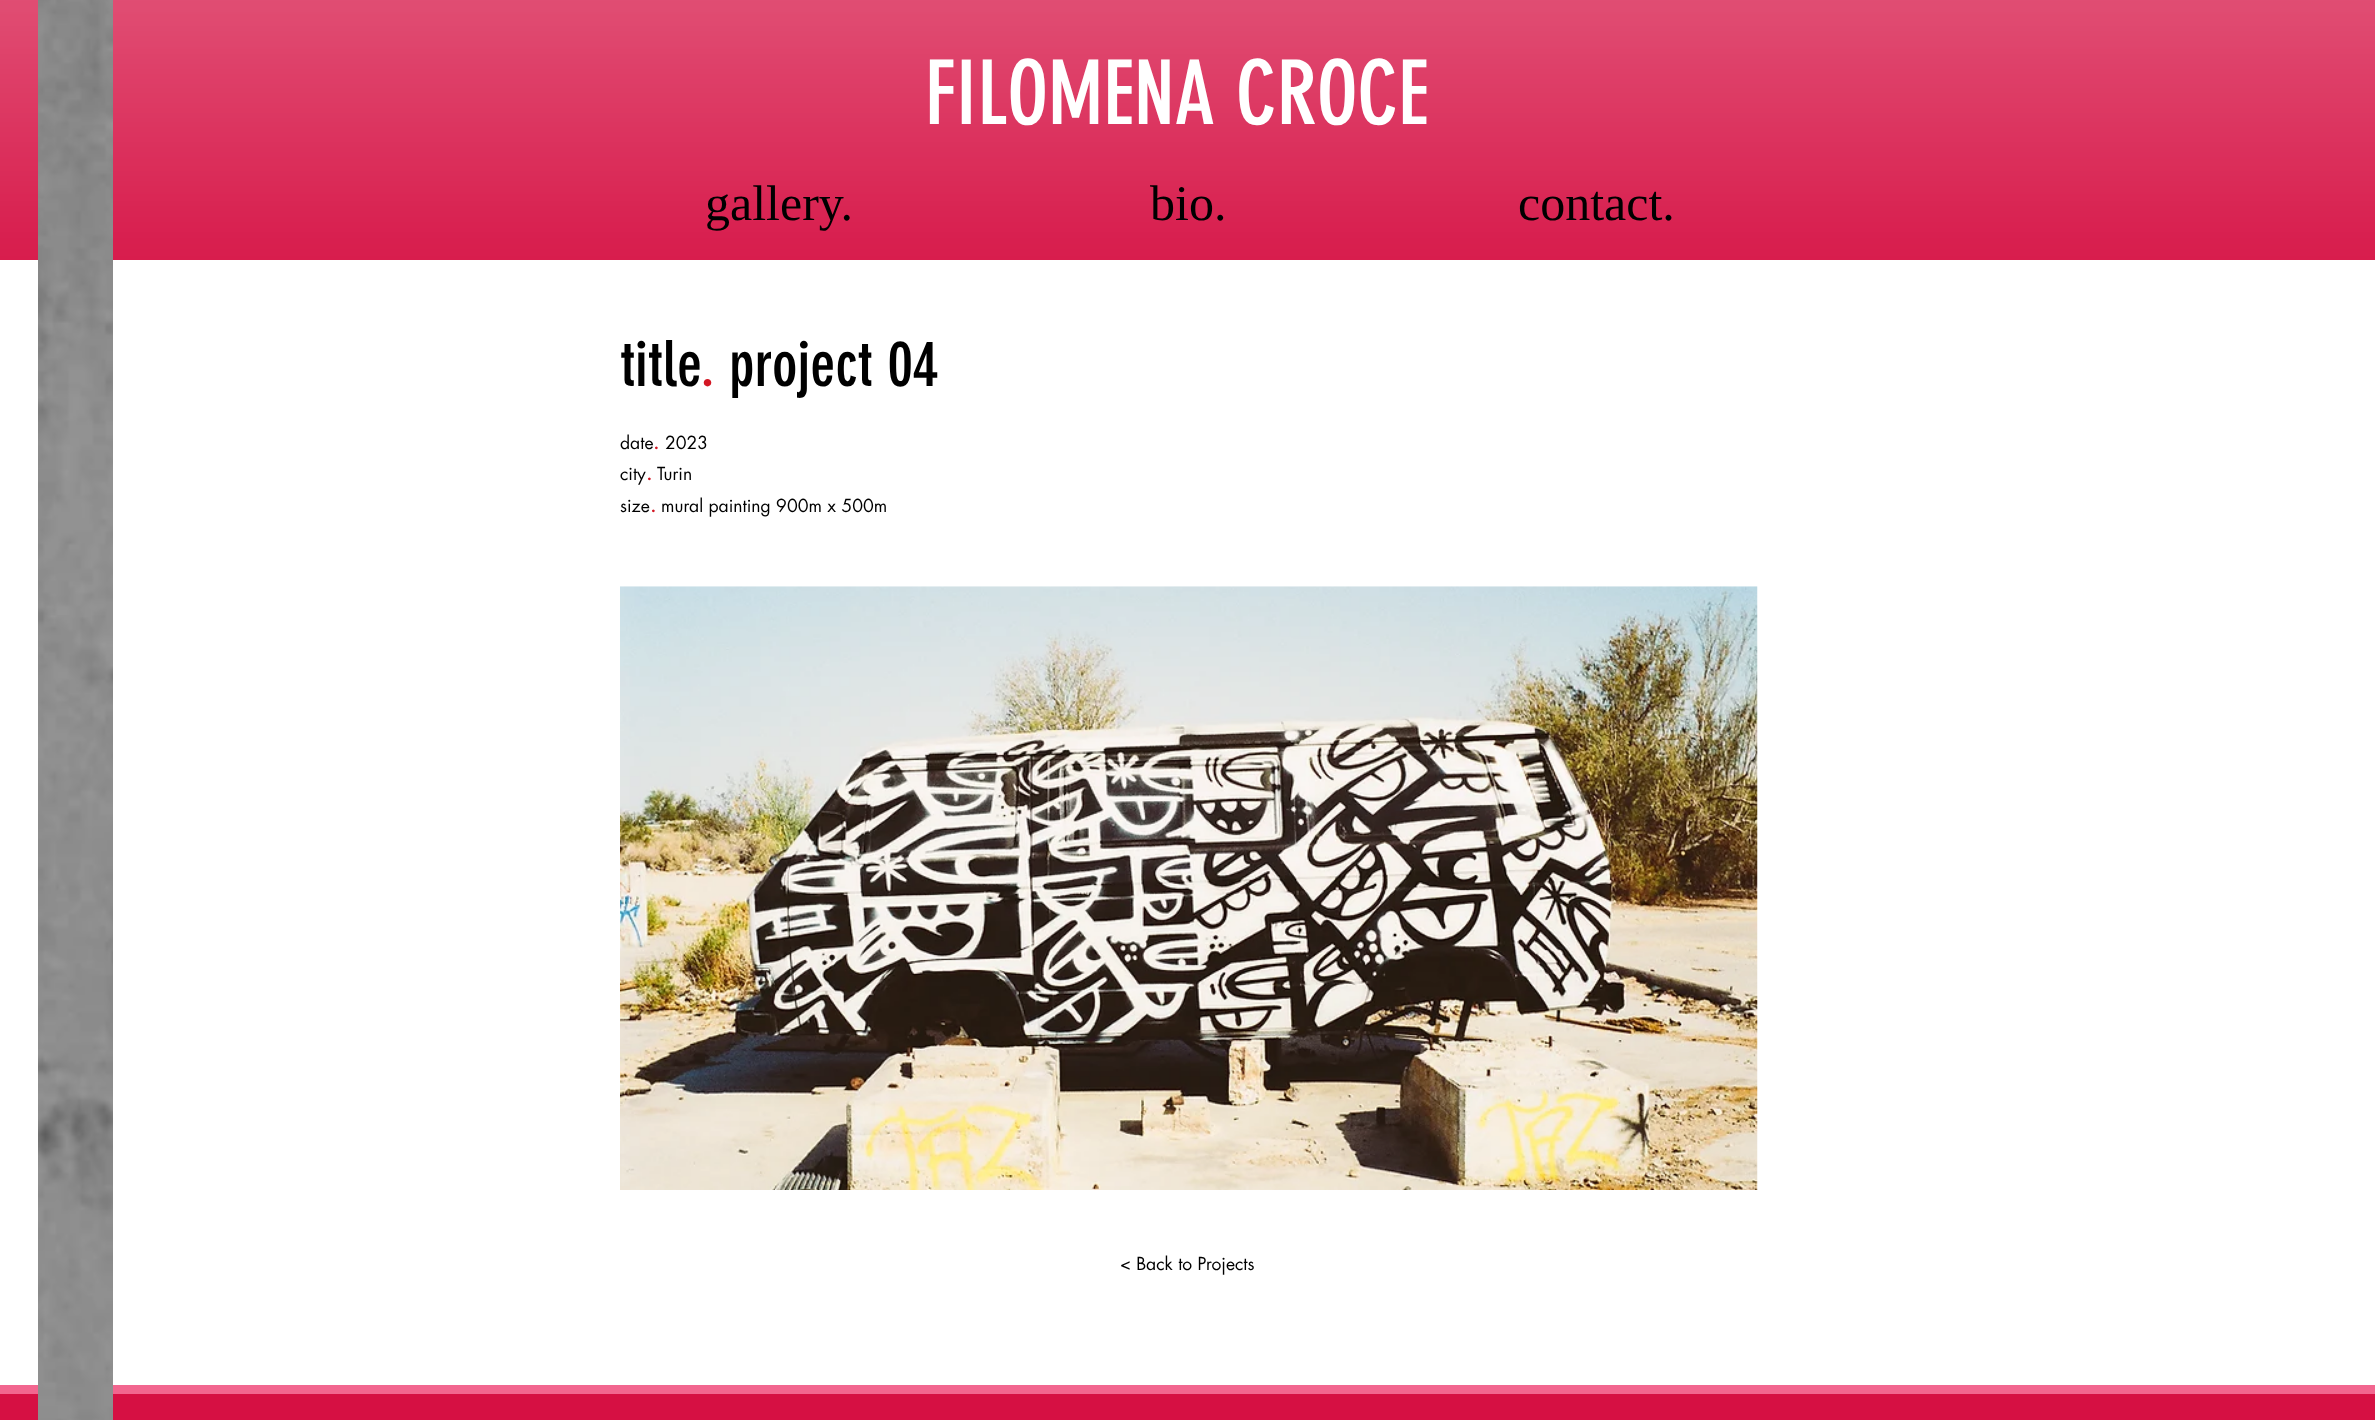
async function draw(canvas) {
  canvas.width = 2375;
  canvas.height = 1420;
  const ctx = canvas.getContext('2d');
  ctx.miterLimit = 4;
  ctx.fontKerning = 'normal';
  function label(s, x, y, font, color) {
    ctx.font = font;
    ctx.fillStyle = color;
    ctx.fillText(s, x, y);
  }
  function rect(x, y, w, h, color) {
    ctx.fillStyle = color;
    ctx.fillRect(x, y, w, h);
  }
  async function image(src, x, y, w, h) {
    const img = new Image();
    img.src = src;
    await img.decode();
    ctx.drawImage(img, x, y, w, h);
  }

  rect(0, 0, 2375, 1420, '#fff');
  rect(0, 0, 2375, 260, '#d61043');
  await image('assets/img1.png', 0, 0, 2375, 260);
  label('FILOMENA CROCE', 925, 124, '87.5px "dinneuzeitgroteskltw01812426"', '#fff');
  label('gallery.', 705, 220, '50px Liberation Serif', '#000');
  label('bio.', 1150, 220, '50px Liberation Serif', '#000');
  label('contact.', 1518, 220, '50px Liberation Serif', '#000');
  rect(0, 1394, 2375, 26, '#d61043');
  rect(0, 1385, 2375, 9, '#f2668f');
  await image('assets/img2.png', 38, 0, 75, 1420);
  label('title', 620, 386, '62.5px "dinneuzeitgroteskltw01812426"', '#000');
  label('.', 700, 386, '62.5px "dinneuzeitgroteskltw01812426"', '#d31724');
  label('project 04', 729, 386, '62.5px "dinneuzeitgroteskltw01812426"', '#000');
  label('date', 620, 449, '17.5px futura', '#000');
  label('.', 653, 449, 'bold 20px futura', '#d31724');
  label('2023', 665, 449, '17.5px futura', '#000');
  label('city', 620, 480, '17.5px futura', '#000');
  label('.', 646, 480, 'bold 20px futura', '#d31724');
  label('Turin', 657, 480, '17.5px futura', '#000');
  label('size', 620, 512, '17.5px futura', '#000');
  label('.', 650, 512, 'bold 20px futura', '#d31724');
  label('mural painting 900m x 500m', 661, 512, '17.5px futura', '#000');
  await image('assets/img3.png', 620, 586, 1138, 604);
  label('< Back to Projects', 1120, 1270, '17.5px futura', '#000');
}

draw(document.querySelector('canvas'));
